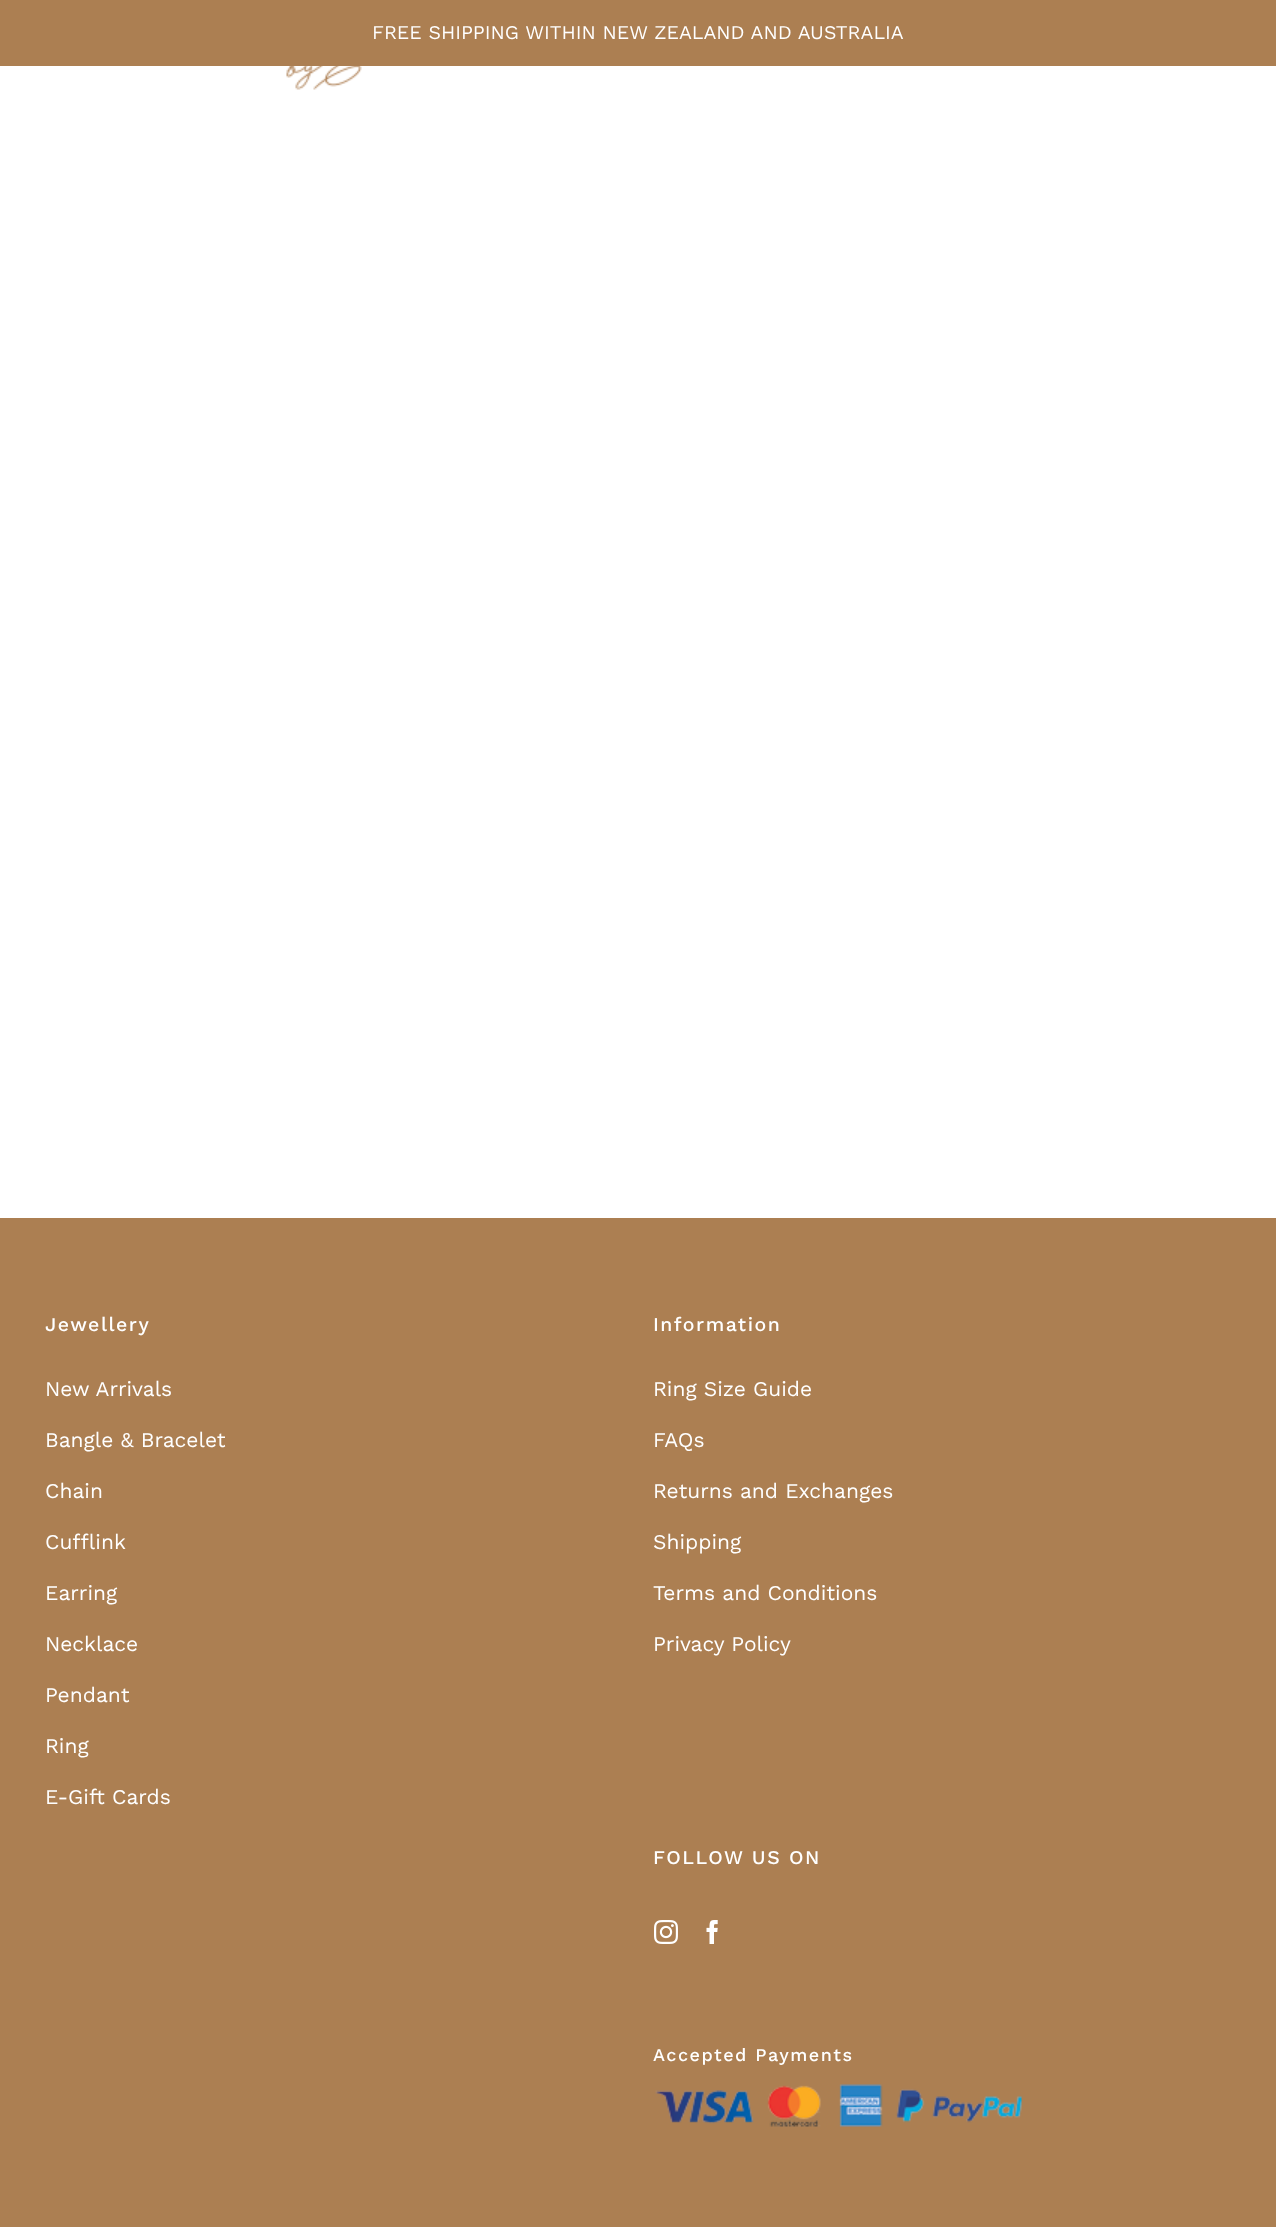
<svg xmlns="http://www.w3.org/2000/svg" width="1276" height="2227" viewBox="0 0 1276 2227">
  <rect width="100%" height="100%" fill="rgb(255,255,255)"/>
  <rect x="0" y="0" width="1276" height="66" fill="rgb(172,127,82)"/>
  <text x="372" y="39" font-family="Work Sans" font-size="19.5" fill="rgb(255,255,255)">FREE SHIPPING WITHIN NEW ZEALAND AND AUSTRALIA</text>
  <image x="286" y="66" width="76" height="24" href="pic1.png"/>
  <rect x="0" y="1218" width="1276" height="1009" fill="rgb(172,127,82)"/>
  <text x="45" y="1331" font-family="Work Sans" font-size="19.5" font-weight="500" letter-spacing="1.5" fill="rgb(255,255,255)">Jewellery</text>
  <g font-family="Work Sans" font-size="21" fill="rgb(255,255,255)">
    <text x="45" y="1396">New Arrivals</text>
    <text x="45" y="1447">Bangle &amp; Bracelet</text>
    <text x="45" y="1498">Chain</text>
    <text x="45" y="1549">Cufflink</text>
    <text x="45" y="1600">Earring</text>
    <text x="45" y="1651">Necklace</text>
    <text x="45" y="1702">Pendant</text>
    <text x="45" y="1753">Ring</text>
    <text x="45" y="1804">E-Gift Cards</text>
  </g>
  <text x="653" y="1331" font-family="Work Sans" font-size="19.5" font-weight="500" letter-spacing="1.5" fill="rgb(255,255,255)">Information</text>
  <g font-family="Work Sans" font-size="21" fill="rgb(255,255,255)">
    <text x="653" y="1396">Ring Size Guide</text>
    <text x="653" y="1447">FAQs</text>
    <text x="653" y="1498">Returns and Exchanges</text>
    <text x="653" y="1549">Shipping</text>
    <text x="653" y="1600">Terms and Conditions</text>
    <text x="653" y="1651">Privacy Policy</text>
  </g>
  <text x="653" y="1864" font-family="Work Sans" font-size="19.5" font-weight="500" letter-spacing="1.5" fill="rgb(255,255,255)">FOLLOW US ON</text>
  <image x="654" y="1920" width="24" height="24" href="pic2.png"/>
  <image x="706" y="1920" width="12" height="24" href="pic3.png"/>
  <text x="653" y="2061" font-family="Work Sans" font-size="18" font-weight="500" letter-spacing="1.5" fill="rgb(255,255,255)">Accepted Payments</text>
  <image x="655" y="2084" width="367" height="43" href="pic4.png"/>
</svg>
